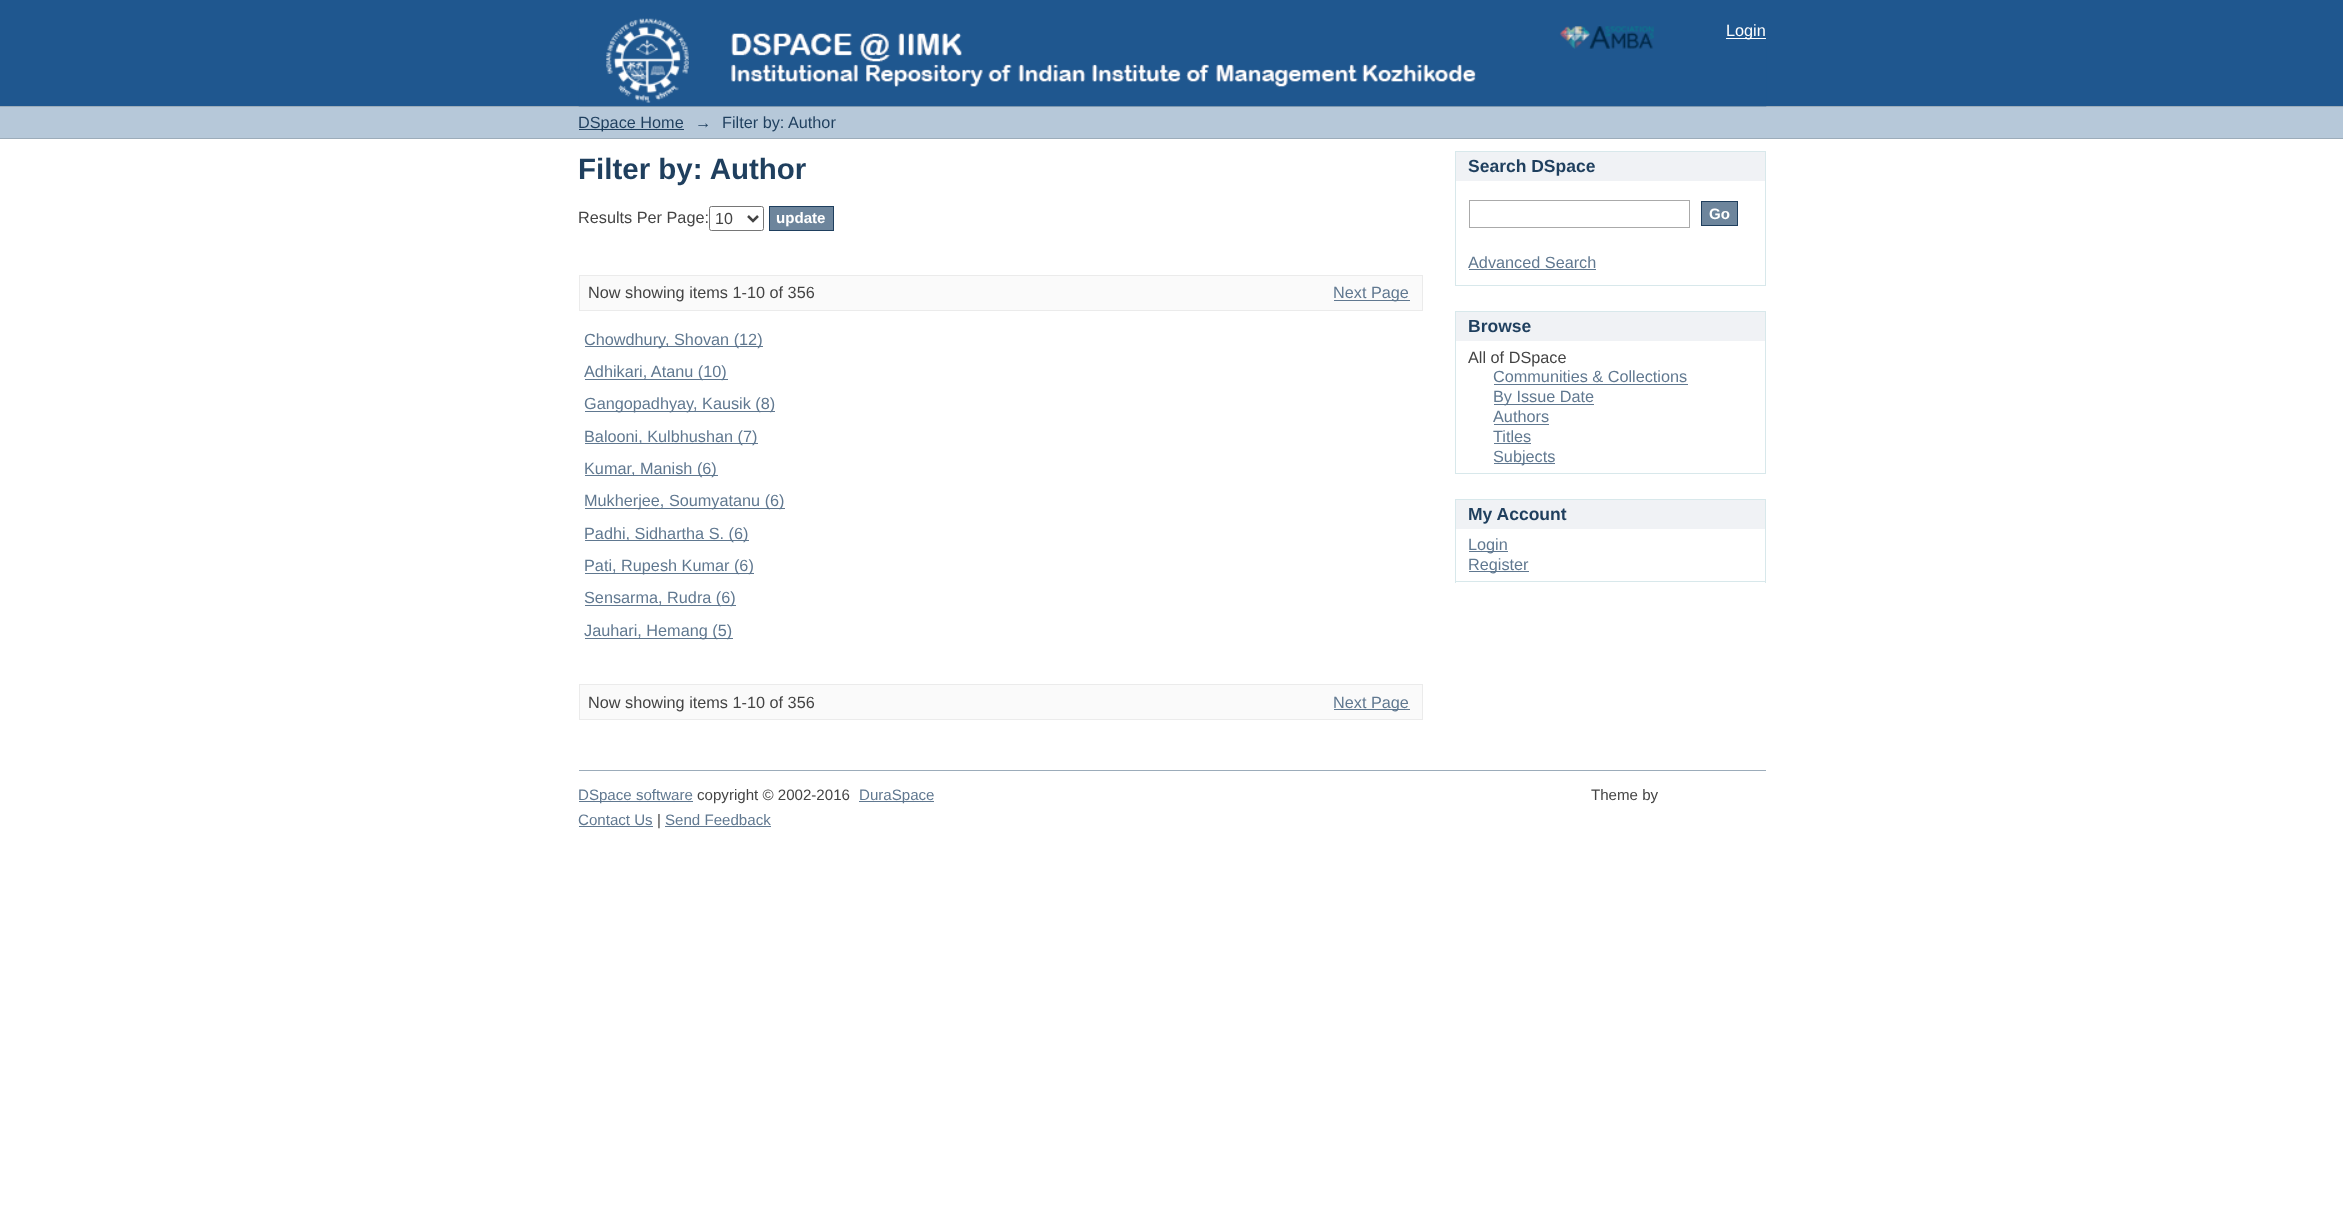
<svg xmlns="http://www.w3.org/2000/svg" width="2343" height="1225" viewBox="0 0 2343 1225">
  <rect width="100%" height="100%" fill="rgb(255,255,255)"/>
  <rect x="0" y="0" width="2343" height="106" fill="rgb(31,87,143)"/>
  <rect x="0" y="106" width="2343" height="1" fill="rgb(156,172,186)"/>
  <image x="578" y="18" width="1189" height="89" href="pic1.png"/>
  <rect x="1726" y="38" width="40" height="1" fill="rgb(255,255,255)"/>
  <text x="1726" y="36" font-family="Liberation Sans" font-size="16.25" fill="rgb(255,255,255)">Login</text>
  <rect x="0" y="107" width="2343" height="31" fill="rgb(182,200,217)"/>
  <rect x="0" y="138" width="2343" height="1" fill="rgb(156,172,186)"/>
  <rect x="579" y="129" width="105" height="1" fill="rgb(31,63,94)"/>
  <g font-family="Liberation Sans" font-size="16.25" fill="rgb(31,63,94)">
    <text x="578" y="128">DSpace Home</text>
    <text x="695" y="128">→</text>
    <text x="722" y="128">Filter by: Author</text>
  </g>
  <text x="578" y="179" font-family="Liberation Sans" font-size="29.5" font-weight="bold" fill="rgb(31,63,94)">Filter by: Author</text>
  <text x="578" y="223" font-family="Liberation Sans" font-size="16.25" fill="rgb(68,68,68)">Results Per Page:</text>
  <rect x="709.5" y="206.5" width="54" height="24" rx="2" fill="none" stroke="rgb(118,118,118)"/>
  <path d="M748 216L753 221L758 216" fill="none" stroke="rgb(68,68,68)" stroke-width="2.5"/>
  <text x="715" y="224" font-family="Liberation Sans" font-size="16" fill="rgb(68,68,68)">10</text>
  <rect x="769.5" y="206.5" width="64" height="24" fill="rgb(109,133,156)" stroke="rgb(31,63,94)"/>
  <text x="776" y="223" font-family="Liberation Sans" font-size="15.1" font-weight="bold" fill="rgb(255,255,255)">update</text>
  <rect x="579.5" y="275.5" width="843" height="35" fill="rgb(250,250,250)" stroke="rgb(235,235,235)"/>
  <text x="588" y="298" font-family="Liberation Sans" font-size="16.25" fill="rgb(68,68,68)">Now showing items 1-10 of 356</text>
  <rect x="1334" y="300" width="76" height="1" fill="rgb(96,120,144)"/>
  <text x="1333" y="298" font-family="Liberation Sans" font-size="16.25" fill="rgb(96,120,144)">Next Page</text>
  <rect x="585" y="346" width="178" height="1" fill="rgb(96,120,144)"/>
  <text x="584" y="345" font-family="Liberation Sans" font-size="16.25" fill="rgb(96,120,144)">Chowdhury, Shovan (12)</text>
  <rect x="585" y="379" width="143" height="1" fill="rgb(96,120,144)"/>
  <text x="584" y="377" font-family="Liberation Sans" font-size="16.25" fill="rgb(96,120,144)">Adhikari, Atanu (10)</text>
  <rect x="585" y="411" width="190" height="1" fill="rgb(96,120,144)"/>
  <text x="584" y="409" font-family="Liberation Sans" font-size="16.25" fill="rgb(96,120,144)">Gangopadhyay, Kausik (8)</text>
  <rect x="585" y="443" width="173" height="1" fill="rgb(96,120,144)"/>
  <text x="584" y="442" font-family="Liberation Sans" font-size="16.25" fill="rgb(96,120,144)">Balooni, Kulbhushan (7)</text>
  <rect x="585" y="475" width="133" height="1" fill="rgb(96,120,144)"/>
  <text x="584" y="474" font-family="Liberation Sans" font-size="16.25" fill="rgb(96,120,144)">Kumar, Manish (6)</text>
  <rect x="585" y="508" width="200" height="1" fill="rgb(96,120,144)"/>
  <text x="584" y="506" font-family="Liberation Sans" font-size="16.25" fill="rgb(96,120,144)">Mukherjee, Soumyatanu (6)</text>
  <rect x="585" y="540" width="164" height="1" fill="rgb(96,120,144)"/>
  <text x="584" y="539" font-family="Liberation Sans" font-size="16.25" fill="rgb(96,120,144)">Padhi, Sidhartha S. (6)</text>
  <rect x="585" y="573" width="169" height="1" fill="rgb(96,120,144)"/>
  <text x="584" y="571" font-family="Liberation Sans" font-size="16.25" fill="rgb(96,120,144)">Pati, Rupesh Kumar (6)</text>
  <rect x="585" y="605" width="151" height="1" fill="rgb(96,120,144)"/>
  <text x="584" y="603" font-family="Liberation Sans" font-size="16.25" fill="rgb(96,120,144)">Sensarma, Rudra (6)</text>
  <rect x="585" y="638" width="148" height="1" fill="rgb(96,120,144)"/>
  <text x="584" y="636" font-family="Liberation Sans" font-size="16.25" fill="rgb(96,120,144)">Jauhari, Hemang (5)</text>
  <rect x="579.5" y="684.5" width="843" height="35" fill="rgb(250,250,250)" stroke="rgb(235,235,235)"/>
  <text x="588" y="708" font-family="Liberation Sans" font-size="16.25" fill="rgb(68,68,68)">Now showing items 1-10 of 356</text>
  <rect x="1334" y="709" width="76" height="1" fill="rgb(96,120,144)"/>
  <text x="1333" y="708" font-family="Liberation Sans" font-size="16.25" fill="rgb(96,120,144)">Next Page</text>
  <rect x="1456" y="152" width="309" height="29" fill="rgb(240,242,245)"/>
  <rect x="1455" y="151" width="311" height="1" fill="rgb(216,232,235)"/>
  <rect x="1765" y="151" width="1" height="135" fill="rgb(216,232,235)"/>
  <rect x="1455" y="151" width="1" height="30" fill="rgb(216,232,235)"/>
  <text x="1468" y="172" font-family="Liberation Sans" font-size="17.5" font-weight="bold" fill="rgb(31,63,94)">Search DSpace</text>
  <rect x="1455" y="285" width="311" height="1" fill="rgb(216,232,235)"/>
  <rect x="1455" y="181" width="1" height="105" fill="rgb(216,232,235)"/>
  <rect x="1469.5" y="200.5" width="220" height="27" fill="none" stroke="rgb(170,170,170)"/>
  <rect x="1701.5" y="201.5" width="36" height="24" fill="rgb(109,133,156)" stroke="rgb(31,63,94)"/>
  <text x="1709" y="219" font-family="Liberation Sans" font-size="15.1" font-weight="bold" fill="rgb(255,255,255)">Go</text>
  <text x="1468" y="268" font-family="Liberation Sans" font-size="16.25" fill="rgb(96,120,144)">Advanced Search</text>
  <rect x="1469" y="269" width="127" height="1" fill="rgb(96,120,144)"/>
  <rect x="1456" y="312" width="309" height="29" fill="rgb(240,242,245)"/>
  <rect x="1455" y="311" width="311" height="1" fill="rgb(216,232,235)"/>
  <rect x="1765" y="311" width="1" height="163" fill="rgb(216,232,235)"/>
  <rect x="1455" y="311" width="1" height="30" fill="rgb(216,232,235)"/>
  <text x="1468" y="332" font-family="Liberation Sans" font-size="17.5" font-weight="bold" fill="rgb(31,63,94)">Browse</text>
  <rect x="1455" y="473" width="311" height="1" fill="rgb(216,232,235)"/>
  <rect x="1455" y="341" width="1" height="133" fill="rgb(216,232,235)"/>
  <text x="1468" y="363" font-family="Liberation Sans" font-size="16.25" fill="rgb(68,68,68)">All of DSpace</text>
  <text x="1493" y="382" font-family="Liberation Sans" font-size="16.25" fill="rgb(96,120,144)">Communities &amp; Collections</text>
  <rect x="1494" y="384" width="194" height="1" fill="rgb(96,120,144)"/>
  <rect x="1494" y="404" width="100" height="1" fill="rgb(96,120,144)"/>
  <g font-family="Liberation Sans" font-size="16.25" fill="rgb(96,120,144)">
    <text>
      <tspan x="1493" y="402">By Issue Date</tspan>
      <tspan x="1493" y="422">Authors</tspan>
    </text>
  </g>
  <rect x="1494" y="424" width="55" height="1" fill="rgb(96,120,144)"/>
  <text x="1493" y="442" font-family="Liberation Sans" font-size="16.25" fill="rgb(96,120,144)">Titles</text>
  <rect x="1494" y="443" width="37" height="1" fill="rgb(96,120,144)"/>
  <rect x="1494" y="463" width="61" height="1" fill="rgb(96,120,144)"/>
  <text x="1493" y="462" font-family="Liberation Sans" font-size="16.25" fill="rgb(96,120,144)">Subjects</text>
  <rect x="1456" y="500" width="309" height="29" fill="rgb(240,242,245)"/>
  <rect x="1455" y="499" width="311" height="1" fill="rgb(216,232,235)"/>
  <rect x="1765" y="499" width="1" height="84" fill="rgb(216,232,235)"/>
  <rect x="1455" y="499" width="1" height="30" fill="rgb(216,232,235)"/>
  <text x="1468" y="520" font-family="Liberation Sans" font-size="17.5" font-weight="bold" fill="rgb(31,63,94)">My Account</text>
  <rect x="1455" y="581" width="311" height="1" fill="rgb(216,232,235)"/>
  <rect x="1455" y="529" width="1" height="54" fill="rgb(216,232,235)"/>
  <rect x="1469" y="551" width="39" height="1" fill="rgb(96,120,144)"/>
  <text x="1468" y="550" font-family="Liberation Sans" font-size="16.25" fill="rgb(96,120,144)">Login</text>
  <rect x="1469" y="571" width="60" height="1" fill="rgb(96,120,144)"/>
  <text x="1468" y="570" font-family="Liberation Sans" font-size="16.25" fill="rgb(96,120,144)">Register</text>
  <rect x="579" y="770" width="1187" height="1" fill="rgb(156,172,186)"/>
  <rect x="579" y="801" width="114" height="1" fill="rgb(96,120,144)"/>
  <text x="578" y="800" font-family="Liberation Sans" font-size="15.1" fill="rgb(96,120,144)">DSpace software</text>
  <text x="697" y="800" font-family="Liberation Sans" font-size="15.1" fill="rgb(68,68,68)">copyright © 2002-2016</text>
  <rect x="859" y="801" width="75" height="1" fill="rgb(96,120,144)"/>
  <text x="859" y="800" font-family="Liberation Sans" font-size="15.1" fill="rgb(96,120,144)">DuraSpace</text>
  <text x="1591" y="800" font-family="Liberation Sans" font-size="15.1" fill="rgb(68,68,68)">Theme by</text>
  <text x="578" y="825" font-family="Liberation Sans" font-size="15.1" fill="rgb(96,120,144)">Contact Us</text>
  <rect x="579" y="826" width="74" height="1" fill="rgb(96,120,144)"/>
  <text x="657" y="825" font-family="Liberation Sans" font-size="15.1" fill="rgb(68,68,68)">|</text>
  <text x="665" y="825" font-family="Liberation Sans" font-size="15.1" fill="rgb(96,120,144)">Send Feedback</text>
  <rect x="665" y="826" width="106" height="1" fill="rgb(96,120,144)"/>
</svg>
